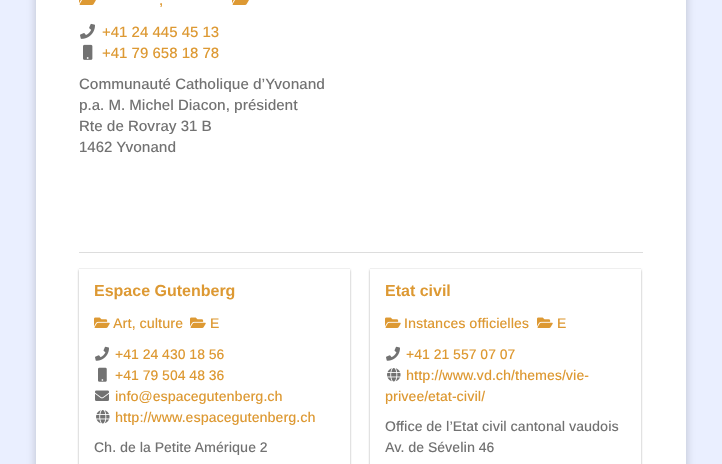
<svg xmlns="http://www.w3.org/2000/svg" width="722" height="464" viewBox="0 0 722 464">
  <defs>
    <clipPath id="clip1"><path d="M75 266H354V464H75ZM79 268H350V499H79Z" clip-rule="evenodd"/></clipPath>
    <clipPath id="clip2"><path d="M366 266H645V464H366ZM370 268H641V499H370Z" clip-rule="evenodd"/></clipPath>
  </defs>
  <rect width="100%" height="100%" fill="rgb(234,239,255)"/>
  <rect x="36" y="-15" width="650" height="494" fill="rgba(0,0,0,0.2)" filter="blur(5px)"/>
  <rect x="36" y="0" width="650" height="464" fill="rgb(255,255,255)"/>
  <image x="232" y="0" width="17" height="5" href="pic1.png"/>
  <image x="79" y="0" width="17" height="5" href="pic1.png"/>
  <text x="159" y="5" font-family="Arimo" font-size="15" font-weight="500" fill="rgb(221,153,51)">,</text>
  <image x="80" y="23" width="15" height="16" href="pic2.png"/>
  <text x="102" y="37" font-family="Arimo" font-size="15" font-weight="500" fill="rgb(221,153,51)">+41 24 445 45 13</text>
  <image x="83" y="44" width="10" height="16" href="pic3.png"/>
  <text x="102" y="58" font-family="Arimo" font-size="15" font-weight="500" fill="rgb(221,153,51)">+41 79 658 18 78</text>
  <g font-family="Arimo" font-size="15" font-weight="500" fill="rgb(114,114,114)">
    <text>
      <tspan x="79" y="89">Communauté Catholique d’Yvonand</tspan>
      <tspan x="79" y="110">p.a. M. Michel Diacon, président</tspan>
      <tspan x="79" y="131">Rte de Rovray 31 B</tspan>
      <tspan x="79" y="152">1462 Yvonand</tspan>
    </text>
  </g>
  <rect x="79" y="252" width="564" height="1" fill="rgb(221,221,221)"/>
  <g clip-path="url(#clip1)">
    <rect x="79" y="270" width="271" height="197" fill="rgba(85,85,85,0.5)" filter="blur(1px)"/>
  </g>
  <rect x="79" y="268" width="271" height="1" fill="rgb(239,239,239)"/>
  <text x="94" y="296" font-family="Arimo" font-size="16" font-weight="bold" fill="rgb(221,153,51)">Espace Gutenberg</text>
  <image x="94" y="317" width="16" height="11" href="pic4.png"/>
  <text x="113" y="328" font-family="Arimo" font-size="14" font-weight="500" fill="rgb(221,153,51)">Art, culture</text>
  <image x="190" y="317" width="16" height="11" href="pic4.png"/>
  <text x="210" y="328" font-family="Arimo" font-size="14" font-weight="500" fill="rgb(221,153,51)">E</text>
  <image x="95" y="346" width="14" height="15" href="pic5.png"/>
  <text x="115" y="359" font-family="Arimo" font-size="14" font-weight="500" fill="rgb(221,153,51)">+41 24 430 18 56</text>
  <image x="98" y="367" width="9" height="15" href="pic6.png"/>
  <text x="115" y="380" font-family="Arimo" font-size="14" font-weight="500" fill="rgb(221,153,51)">+41 79 504 48 36</text>
  <image x="95" y="390" width="14" height="11" href="pic7.png"/>
  <text x="115" y="401" font-family="Arimo" font-size="14" font-weight="500" fill="rgb(221,153,51)">info@espacegutenberg.ch</text>
  <image x="96" y="410" width="14" height="14" href="pic8.png"/>
  <text x="115" y="422" font-family="Arimo" font-size="14" font-weight="500" fill="rgb(221,153,51)">http://www.espacegutenberg.ch</text>
  <text x="94" y="452" font-family="Arimo" font-size="14" font-weight="500" fill="rgb(114,114,114)">Ch. de la Petite Amérique 2</text>
  <g clip-path="url(#clip2)">
    <rect x="370" y="270" width="271" height="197" fill="rgba(85,85,85,0.5)" filter="blur(1px)"/>
  </g>
  <rect x="370" y="268" width="271" height="1" fill="rgb(239,239,239)"/>
  <text x="385" y="296" font-family="Arimo" font-size="16" font-weight="bold" fill="rgb(221,153,51)">Etat civil</text>
  <image x="385" y="317" width="16" height="11" href="pic4.png"/>
  <text x="404" y="328" font-family="Arimo" font-size="14" font-weight="500" fill="rgb(221,153,51)">Instances officielles</text>
  <image x="537" y="317" width="16" height="11" href="pic4.png"/>
  <text x="557" y="328" font-family="Arimo" font-size="14" font-weight="500" fill="rgb(221,153,51)">E</text>
  <image x="386" y="346" width="14" height="15" href="pic5.png"/>
  <text x="406" y="359" font-family="Arimo" font-size="14" font-weight="500" fill="rgb(221,153,51)">+41 21 557 07 07</text>
  <image x="387" y="368" width="14" height="14" href="pic8.png"/>
  <g font-family="Arimo" font-size="14" font-weight="500" fill="rgb(221,153,51)">
    <text x="406" y="380">http://www.vd.ch/themes/vie-</text>
    <text x="385" y="401">privee/etat-civil/</text>
  </g>
  <g font-family="Arimo" font-size="14" font-weight="500" fill="rgb(114,114,114)">
    <text>
      <tspan x="385" y="431">Office de l’Etat civil cantonal vaudois</tspan>
      <tspan x="385" y="452">Av. de Sévelin 46</tspan>
    </text>
  </g>
</svg>
